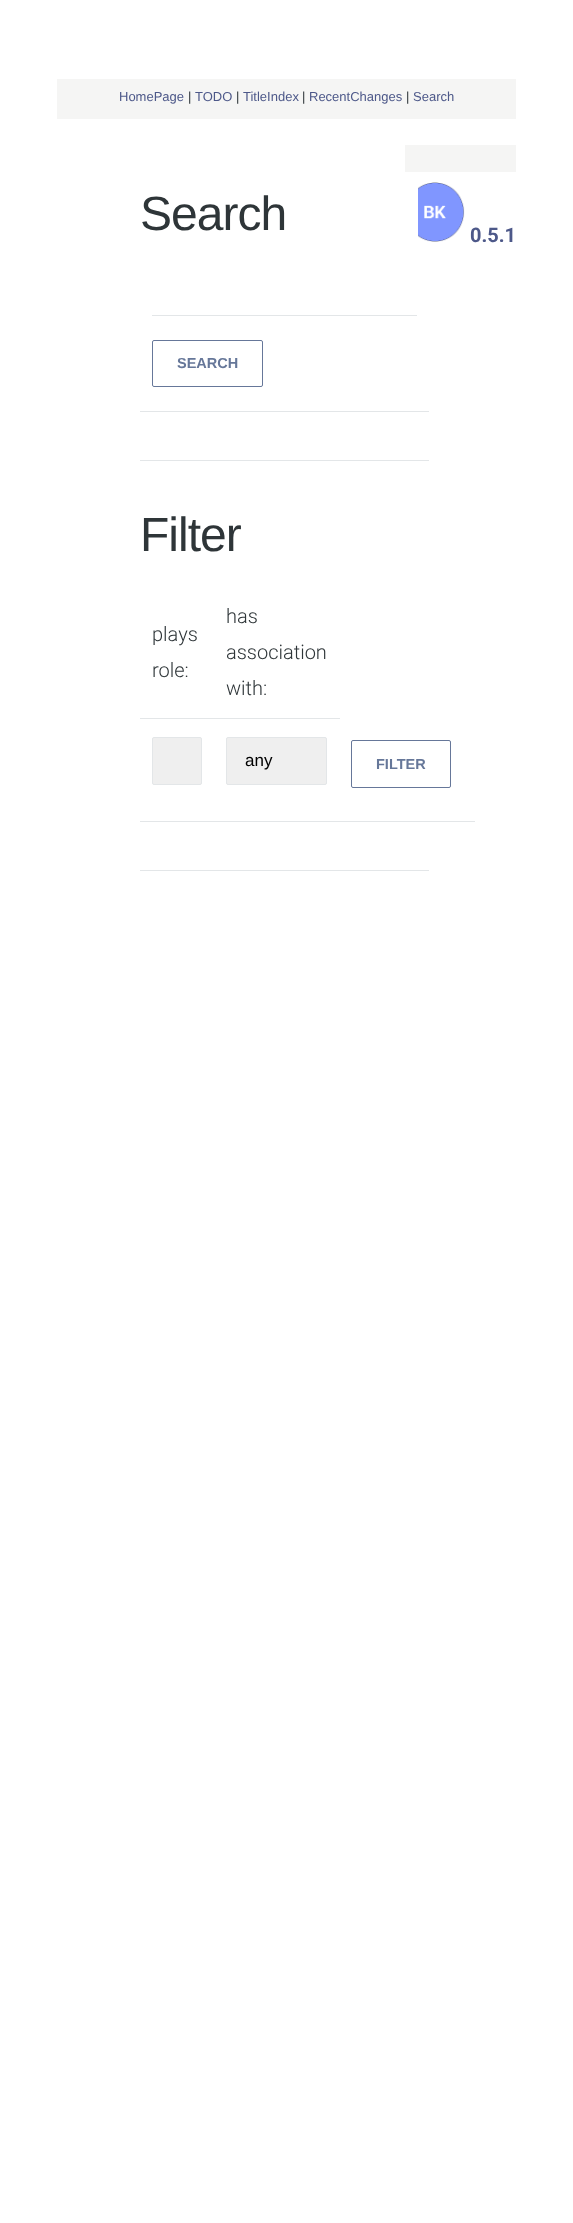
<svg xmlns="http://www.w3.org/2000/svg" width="573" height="2223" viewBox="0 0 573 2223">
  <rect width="100%" height="100%" fill="rgb(255,255,255)"/>
  <rect x="57" y="79" width="459" height="40" fill="rgb(245,245,244)"/>
  <text x="119" y="101" font-family="Liberation Sans" font-size="13" fill="rgb(77,88,137)">HomePage</text>
  <text x="188" y="101" font-family="Liberation Sans" font-size="13" fill="rgb(46,53,56)">|</text>
  <text x="195" y="101" font-family="Liberation Sans" font-size="13" fill="rgb(77,88,137)">TODO</text>
  <text x="236" y="101" font-family="Liberation Sans" font-size="13" fill="rgb(46,53,56)">|</text>
  <text x="243" y="101" font-family="Liberation Sans" font-size="13" fill="rgb(77,88,137)">TitleIndex</text>
  <text x="302" y="101" font-family="Liberation Sans" font-size="13" fill="rgb(46,53,56)">|</text>
  <text x="309" y="101" font-family="Liberation Sans" font-size="13" fill="rgb(77,88,137)">RecentChanges</text>
  <text x="406" y="101" font-family="Liberation Sans" font-size="13" fill="rgb(46,53,56)">|</text>
  <text x="413" y="101" font-family="Liberation Sans" font-size="13" fill="rgb(77,88,137)">Search</text>
  <text x="140" y="230" font-family="Liberation Sans" font-size="48" letter-spacing="-1" fill="rgb(46,53,56)">Search</text>
  <rect x="140" y="411" width="289" height="1" fill="rgb(227,230,232)"/>
  <rect x="152" y="315" width="265" height="1" fill="rgb(227,230,232)"/>
  <rect x="152.5" y="340.5" width="110" height="46" rx="1.5" fill="none" stroke="rgb(102,119,153)"/>
  <text x="177" y="368" font-family="Liberation Sans" font-size="14.5" font-weight="bold" fill="rgb(102,119,153)">SEARCH</text>
  <rect x="140" y="460" width="289" height="1" fill="rgb(227,230,232)"/>
  <text x="140" y="551" font-family="Liberation Sans" font-size="48" letter-spacing="-1" fill="rgb(46,53,56)">Filter</text>
  <g font-family="Roboto" font-size="20" font-weight="300" fill="rgb(46,53,56)">
    <text>
      <tspan x="152" y="641">plays</tspan>
      <tspan x="152" y="677">role:</tspan>
    </text>
  </g>
  <rect x="140" y="718" width="200" height="1" fill="rgb(227,230,232)"/>
  <g font-family="Roboto" font-size="20" font-weight="300" fill="rgb(46,53,56)">
    <text>
      <tspan x="226" y="623">has</tspan>
      <tspan x="226" y="659">association</tspan>
      <tspan x="226" y="695">with:</tspan>
    </text>
  </g>
  <rect x="152.5" y="737.5" width="49" height="47" rx="1.5" fill="rgb(239,239,239)" stroke="rgb(227,230,232)"/>
  <rect x="226.5" y="737.5" width="100" height="47" rx="1.5" fill="rgb(239,239,239)" stroke="rgb(227,230,232)"/>
  <text x="245" y="766" font-family="Liberation Sans" font-size="17" fill="rgb(0,0,0)">any</text>
  <rect x="140" y="821" width="335" height="1" fill="rgb(227,230,232)"/>
  <rect x="351.5" y="740.5" width="99" height="47" rx="1.5" fill="none" stroke="rgb(102,119,153)"/>
  <text x="376" y="769" font-family="Liberation Sans" font-size="14.5" font-weight="bold" fill="rgb(102,119,153)">FILTER</text>
  <rect x="140" y="870" width="289" height="1" fill="rgb(227,230,232)"/>
  <rect x="405" y="145" width="111" height="27" fill="rgb(245,245,244)"/>
  <image x="418" y="182" width="47" height="60" href="pic1.png"/>
  <text x="470" y="242" font-family="Roboto" font-size="20" font-weight="bold" fill="rgb(77,88,137)">0.5.1</text>
</svg>
